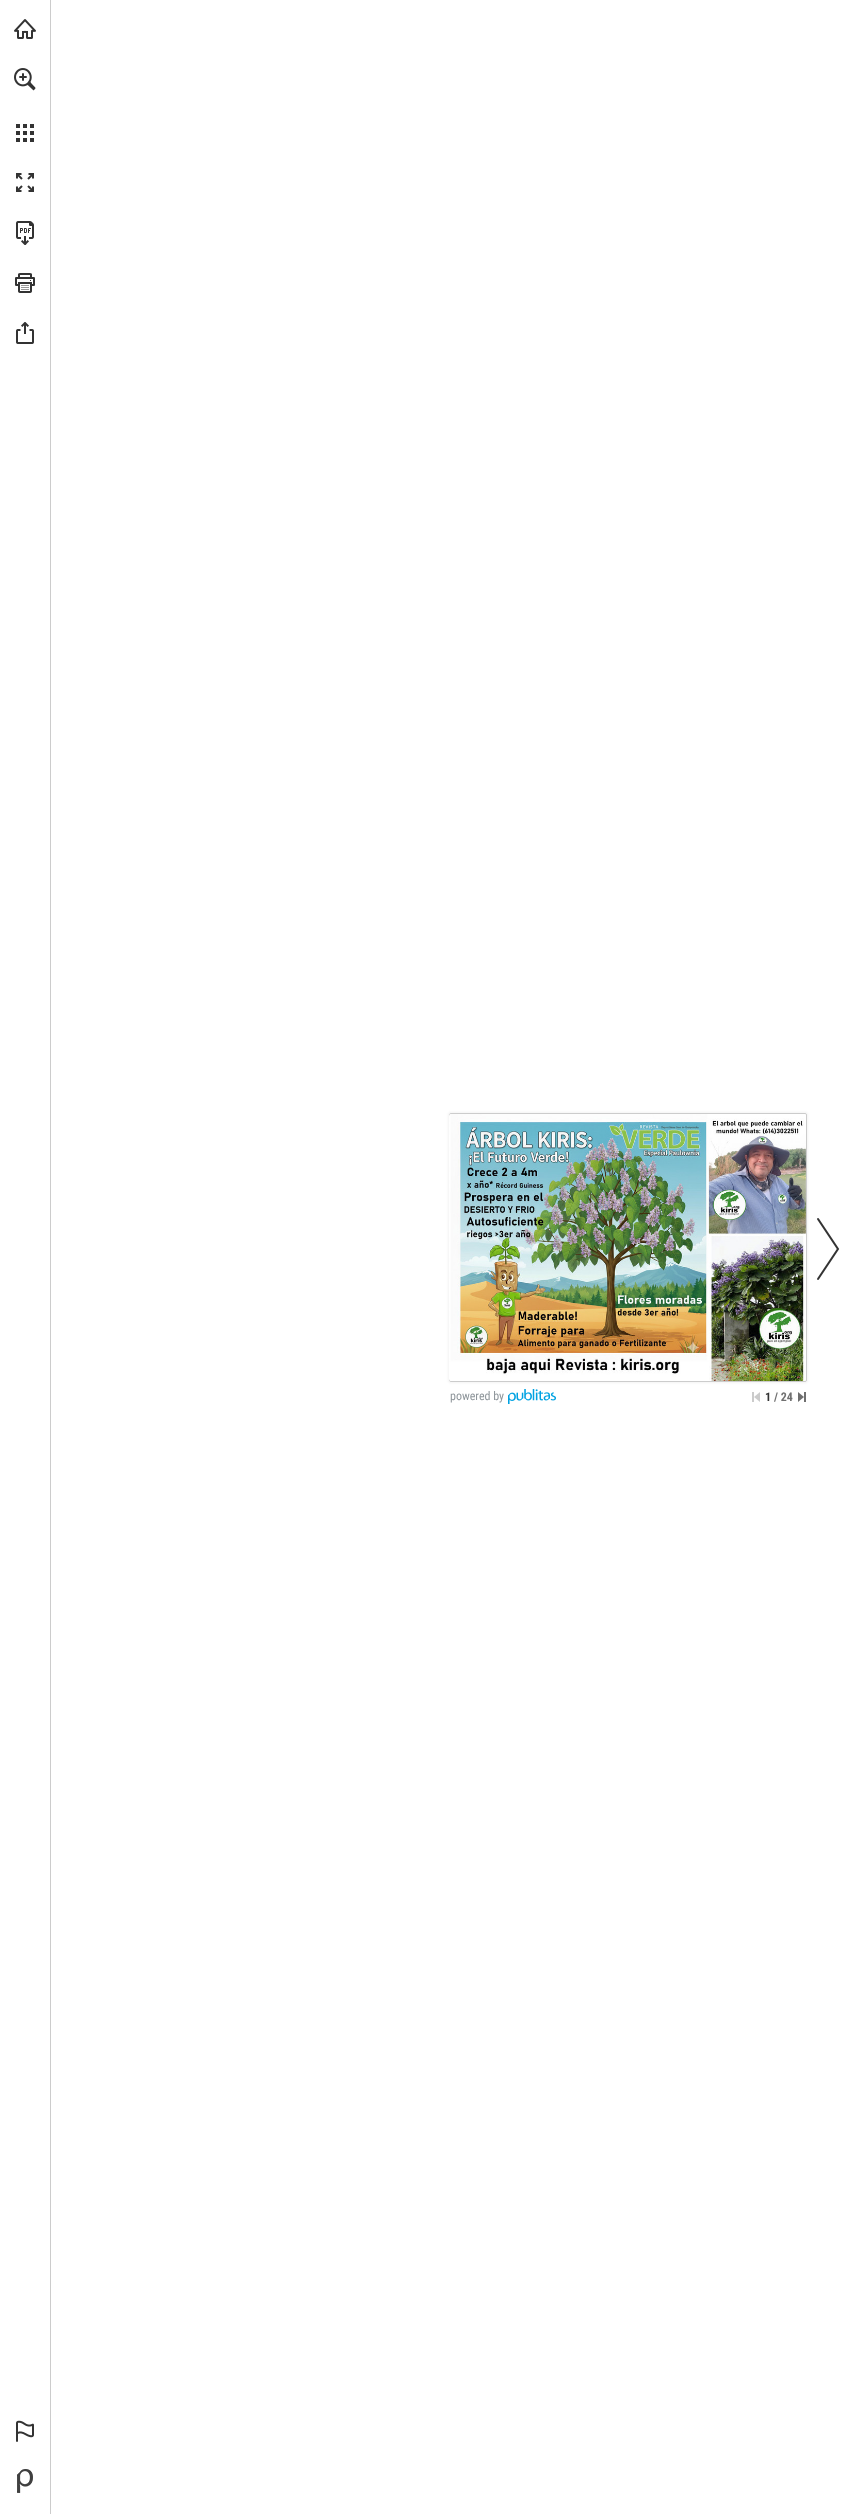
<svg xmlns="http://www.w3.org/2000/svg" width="847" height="2514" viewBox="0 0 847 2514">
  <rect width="100%" height="100%" fill="rgb(255,255,255)"/>
  <rect x="1" y="0" width="50" height="2514" fill="rgba(0,0,0,0.2)" filter="blur(0.5px)"/>
  <rect x="0" y="0" width="50" height="2514" fill="rgb(255,255,255)"/>
  <image x="14" y="19" width="22" height="20" href="pic1.png"/>
  <image x="14" y="68" width="22" height="23" href="pic2.png"/>
  <image x="16" y="124" width="18" height="18" href="pic3.png"/>
  <image x="16" y="173" width="18" height="19" href="pic4.png"/>
  <image x="16" y="221" width="18" height="24" href="pic5.png"/>
  <image x="15" y="273" width="20" height="20" href="pic6.png"/>
  <image x="16" y="322" width="18" height="22" href="pic7.png"/>
  <image x="16" y="2420" width="18" height="22" href="pic8.png"/>
  <image x="17" y="2469" width="16" height="24" href="pic9.png"/>
  <rect x="448" y="1112" width="360" height="271" rx="3" fill="rgba(18,18,18,0.05)" filter="blur(1px)"/>
  <rect x="449.5" y="1113.5" width="357" height="268" rx="1.5" fill="rgb(255,255,255)" stroke="rgb(204,204,204)"/>
  <image x="449" y="1114" width="357" height="267" href="pic10.png"/>
  <image x="508" y="1389" width="48" height="15" href="pic11.png"/>
  <text x="450" y="1400" font-family="Roboto Condensed" font-size="12" fill="rgb(143,150,155)">powered by</text>
  <image x="817" y="1218" width="23" height="62" href="pic12.png"/>
  <image x="752" y="1392" width="8" height="10" href="pic13.png"/>
  <text x="765" y="1401" font-family="Roboto Condensed" font-size="12" font-weight="bold" fill="rgb(51,51,51)">1</text>
  <text x="774" y="1401" font-family="Roboto Condensed" font-size="12" font-weight="bold" fill="rgb(112,112,112)">/ 24</text>
  <image x="798" y="1392" width="8" height="10" href="pic14.png"/>
</svg>
